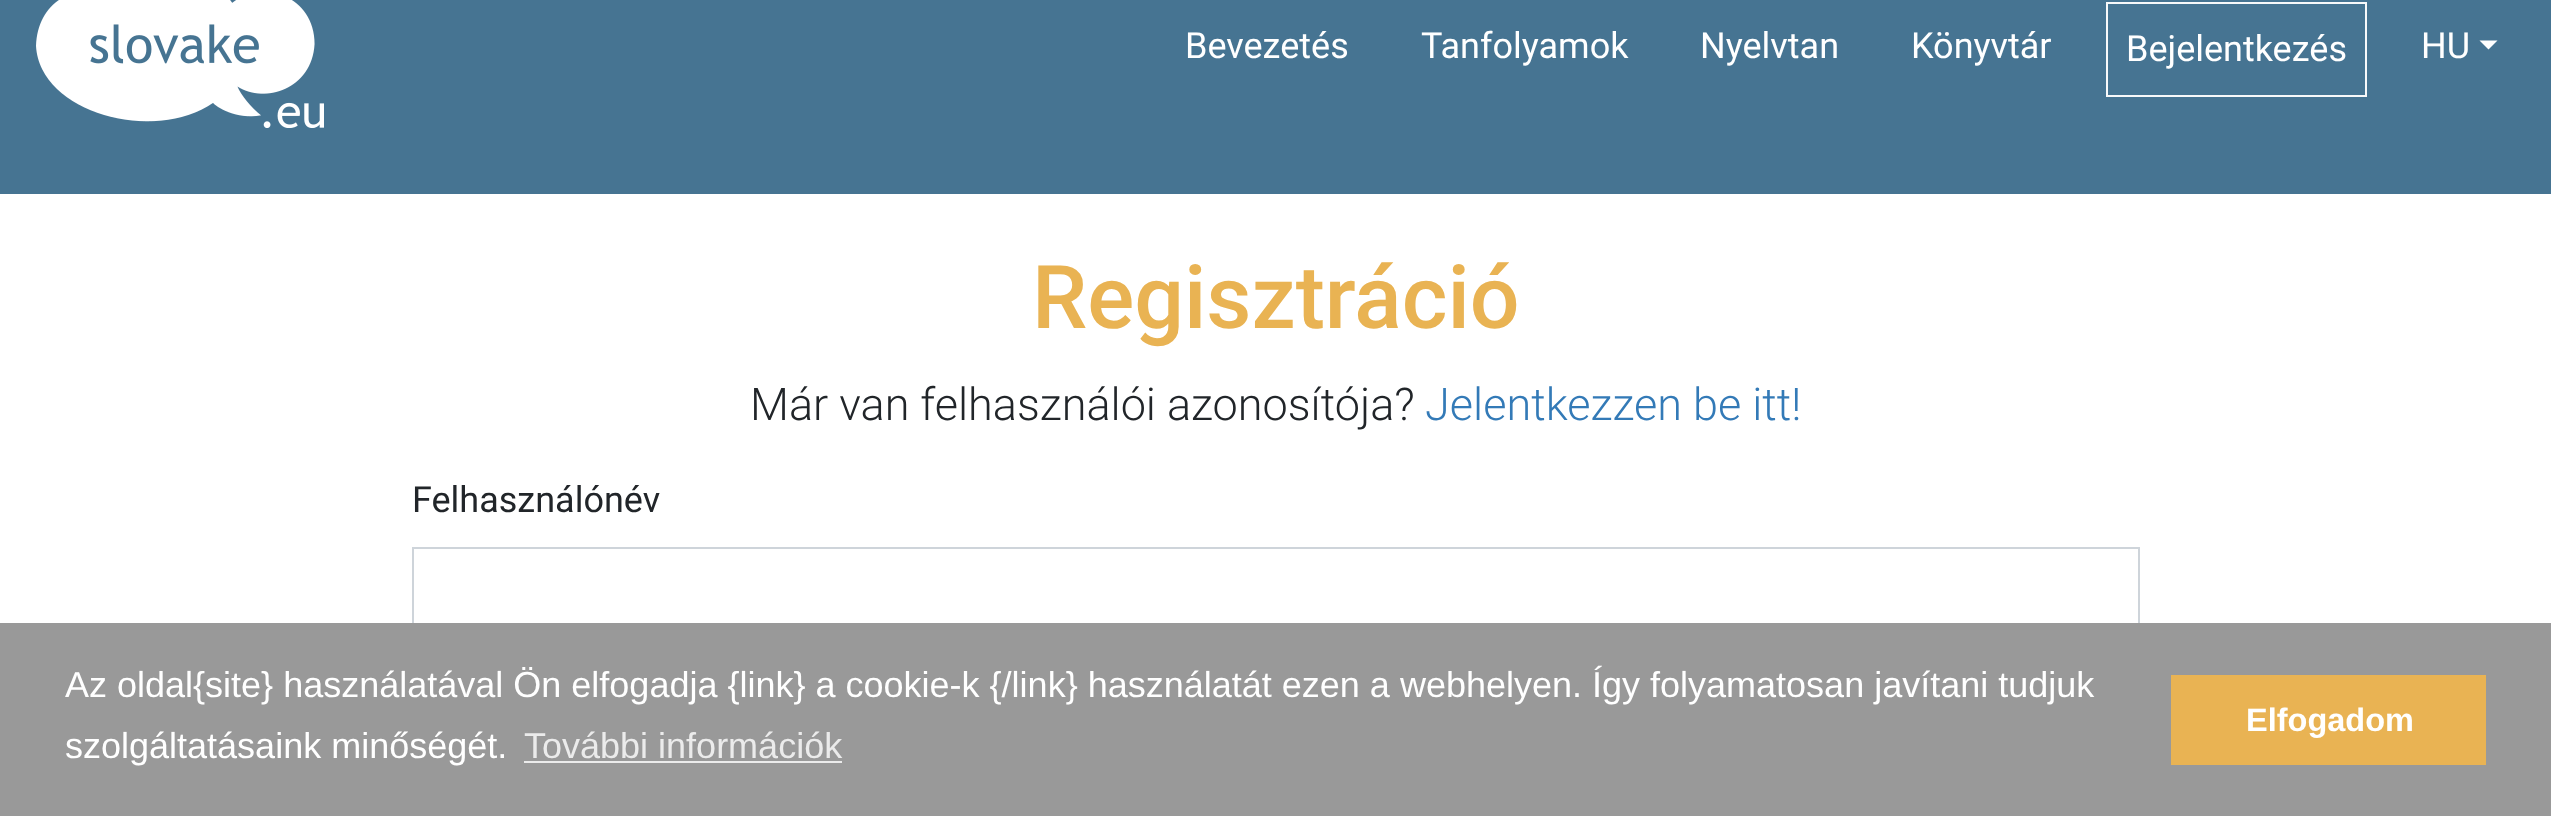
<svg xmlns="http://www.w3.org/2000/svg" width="2551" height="816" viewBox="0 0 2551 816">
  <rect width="100%" height="100%" fill="rgb(255,255,255)"/>
  <rect x="0" y="0" width="2551" height="194" fill="rgb(70,116,146)"/>
  <image x="36" y="0" width="288" height="128" href="pic1.png"/>
  <g font-family="Roboto" font-size="36" fill="rgb(255,255,255)">
    <text x="1185" y="58">Bevezetés</text>
    <text x="1421" y="58">Tanfolyamok</text>
    <text x="1700" y="58">Nyelvtan</text>
    <text x="1911" y="58">Könyvtár</text>
  </g>
  <rect x="2107" y="3" width="259" height="93" fill="none" stroke="rgb(248,249,250)" stroke-width="2"/>
  <g font-family="Roboto" font-size="36" fill="rgb(255,255,255)">
    <text x="2126" y="61">Bejelentkezés</text>
    <text x="2421" y="58">HU</text>
  </g>
  <path d="M2479.5 40.5H2497.5L2488.5 49.5Z" fill="rgb(255,255,255)"/>
  <text x="1032" y="328" font-family="Roboto" font-size="87.75" font-weight="500" fill="rgb(233,179,83)">Regisztráció</text>
  <text x="750" y="420" font-family="Roboto" font-size="45" font-weight="300" fill="rgb(33,37,41)">Már van felhasználói azonosítója?</text>
  <text x="1425" y="420" font-family="Roboto" font-size="45" font-weight="300" fill="rgb(51,122,183)">Jelentkezzen be itt!</text>
  <text x="412" y="512" font-family="Roboto" font-size="36" fill="rgb(33,37,41)">Felhasználónév</text>
  <rect x="413" y="548" width="1726" height="83" fill="none" stroke="rgb(206,212,218)" stroke-width="2"/>
  <rect x="0" y="623" width="2551" height="193" fill="rgb(153,153,153)"/>
  <g font-family="Liberation Sans" font-size="36" fill="rgb(255,255,255)">
    <text>
      <tspan x="65" y="697">Az oldal{site} használatával Ön elfogadja {link} a cookie-k {/link} használatát ezen a webhelyen. Így folyamatosan javítani tudjuk</tspan>
      <tspan x="65" y="758">szolgáltatásaink minőségét.</tspan>
    </text>
  </g>
  <text x="524" y="758" font-family="Liberation Sans" font-size="36" fill="rgb(235,235,235)">További információk</text>
  <rect x="524" y="761" width="318" height="2" fill="rgb(235,235,235)"/>
  <rect x="2171" y="675" width="315" height="90" fill="rgb(233,179,83)"/>
  <text x="2246" y="731" font-family="Liberation Sans" font-size="32.5" font-weight="bold" fill="rgb(255,255,255)">Elfogadom</text>
</svg>
